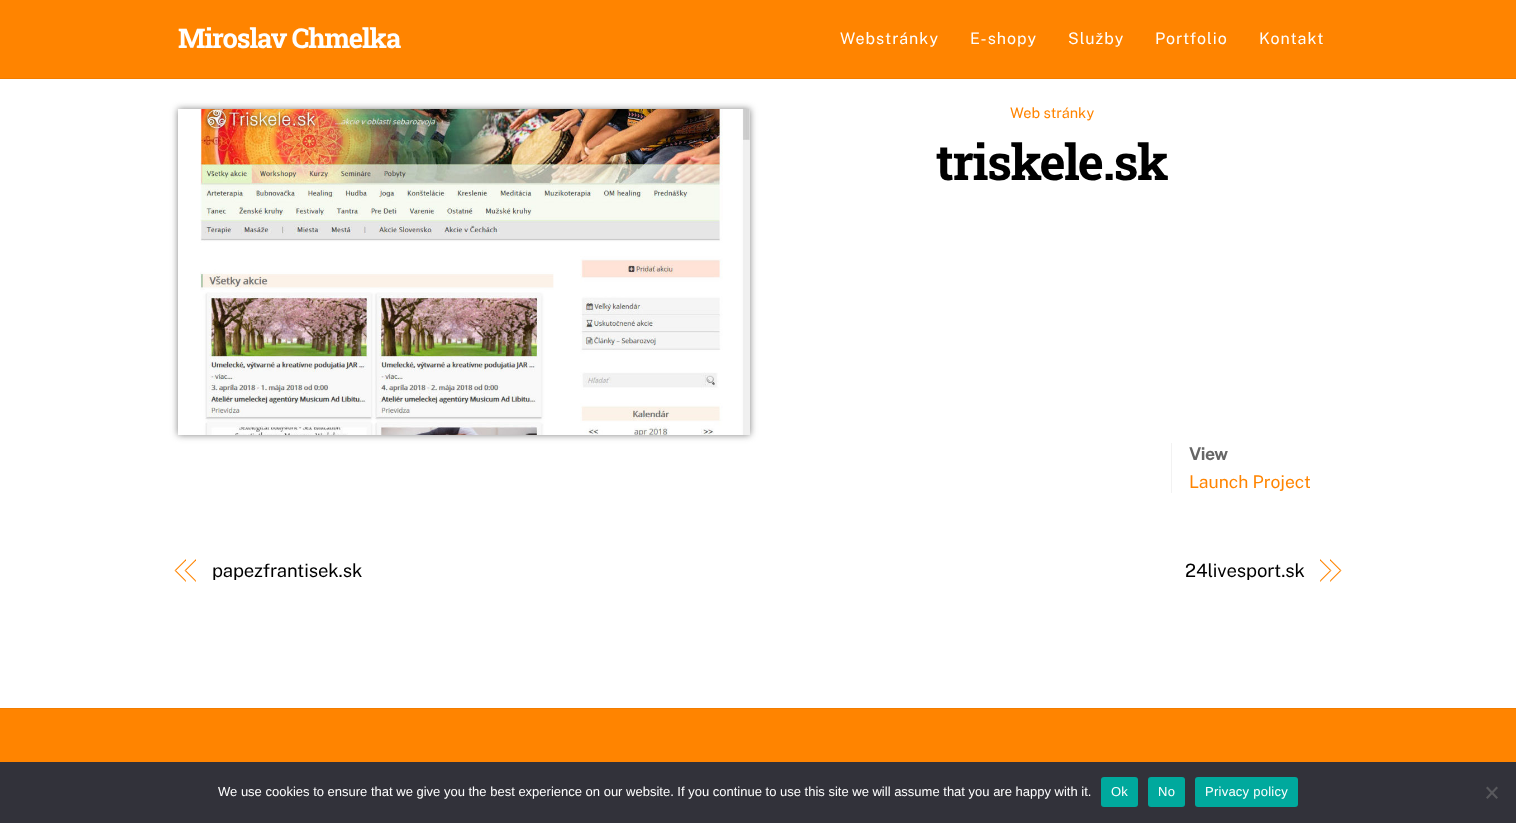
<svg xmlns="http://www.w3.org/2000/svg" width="1516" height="823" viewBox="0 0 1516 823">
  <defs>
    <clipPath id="clip1"><path d="M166 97H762V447H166ZM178 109H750V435H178Z" clip-rule="evenodd"/></clipPath>
  </defs>
  <rect width="100%" height="100%" fill="rgb(255,255,255)"/>
  <rect x="0" y="0" width="1516" height="78" fill="rgb(255,132,0)"/>
  <rect x="0" y="78" width="1516" height="1" fill="rgb(242,125,0)"/>
  <text x="178" y="48" font-family="Roboto Slab" font-size="27.25" font-weight="bold" letter-spacing="-1.1" fill="rgb(255,255,255)">Miroslav Chmelka</text>
  <g font-family="Public Sans" font-size="16" letter-spacing="1" fill="rgb(255,255,255)">
    <text x="840" y="44">Webstránky</text>
    <text x="970" y="44">E-shopy</text>
    <text x="1068" y="44">Služby</text>
    <text x="1155" y="44">Portfolio</text>
    <text x="1259" y="44">Kontakt</text>
  </g>
  <g clip-path="url(#clip1)">
    <rect x="178" y="109" width="572" height="326" fill="rgb(128,128,128)" filter="blur(3.5px)"/>
  </g>
  <image x="200" y="109" width="550" height="326" href="pic1.png"/>
  <text x="1010" y="118" font-family="Public Sans" font-size="14.5" fill="rgb(255,132,0)">Web stránky</text>
  <text x="936" y="180" font-family="Roboto Slab" font-size="49.5" font-weight="bold" letter-spacing="-1.5" fill="rgb(0,0,0)">triskele.sk</text>
  <rect x="1171" y="443" width="1" height="50" fill="rgb(242,242,242)"/>
  <text x="1189" y="460" font-family="Public Sans" font-size="17.5" font-weight="bold" letter-spacing="-0.5" fill="rgb(102,102,102)">View</text>
  <text x="1189" y="488" font-family="Public Sans" font-size="17.5" fill="rgb(255,132,0)">Launch Project</text>
  <path d="M174.5 570.5L186 559V560.5L176 570.5Z" fill="rgb(255,132,0)"/>
  <path d="M186 582L174.5 570.5H176L186 580.5Z" fill="rgb(255,132,0)"/>
  <path d="M184.5 570.5L196 559V560.5L186 570.5Z" fill="rgb(255,132,0)"/>
  <path d="M196 582L184.5 570.5H186L196 580.5Z" fill="rgb(255,132,0)"/>
  <g font-family="Public Sans" font-size="18.5" letter-spacing="-0.1" fill="rgb(0,0,0)">
    <text x="212" y="577">papezfrantisek.sk</text>
    <text x="1185" y="577">24livesport.sk</text>
  </g>
  <path d="M1330 559L1341.5 570.5H1340L1330 560.5Z" fill="rgb(255,132,0)"/>
  <path d="M1341.5 570.5L1330 582V580.5L1340 570.5Z" fill="rgb(255,132,0)"/>
  <path d="M1320 559L1331.5 570.5H1330L1320 560.5Z" fill="rgb(255,132,0)"/>
  <path d="M1331.5 570.5L1320 582V580.5L1330 570.5Z" fill="rgb(255,132,0)"/>
  <rect x="0" y="709" width="1516" height="53" fill="rgb(255,132,0)"/>
  <rect x="0" y="708" width="1516" height="1" fill="rgb(242,125,0)"/>
  <rect x="0" y="762" width="1516" height="61" fill="rgb(50,50,58)"/>
  <text x="218" y="796" font-family="Liberation Sans" font-size="13" fill="rgb(255,255,255)">We use cookies to ensure that we give you the best experience on our website. If you continue to use this site we will assume that you are happy with it.</text>
  <rect x="1101" y="777" width="37" height="30" rx="3" fill="rgb(0,169,157)"/>
  <text x="1111" y="796" font-family="Liberation Sans" font-size="13" letter-spacing="0.25" fill="rgb(255,255,255)">Ok</text>
  <rect x="1148" y="777" width="37" height="30" rx="3" fill="rgb(0,169,157)"/>
  <text x="1158" y="796" font-family="Liberation Sans" font-size="13" letter-spacing="0.25" fill="rgb(255,255,255)">No</text>
  <rect x="1195" y="777" width="103" height="30" rx="3" fill="rgb(0,169,157)"/>
  <text x="1205" y="796" font-family="Liberation Sans" font-size="13" letter-spacing="0.25" fill="rgb(255,255,255)">Privacy policy</text>
  <path d="M1496.5 786.5L1498 788L1487.5 799L1486 797.5Z" fill="rgb(89,89,93)"/>
  <path d="M1486 788L1487.5 786.5L1498 797.5L1496.5 799Z" fill="rgb(89,89,93)"/>
</svg>
